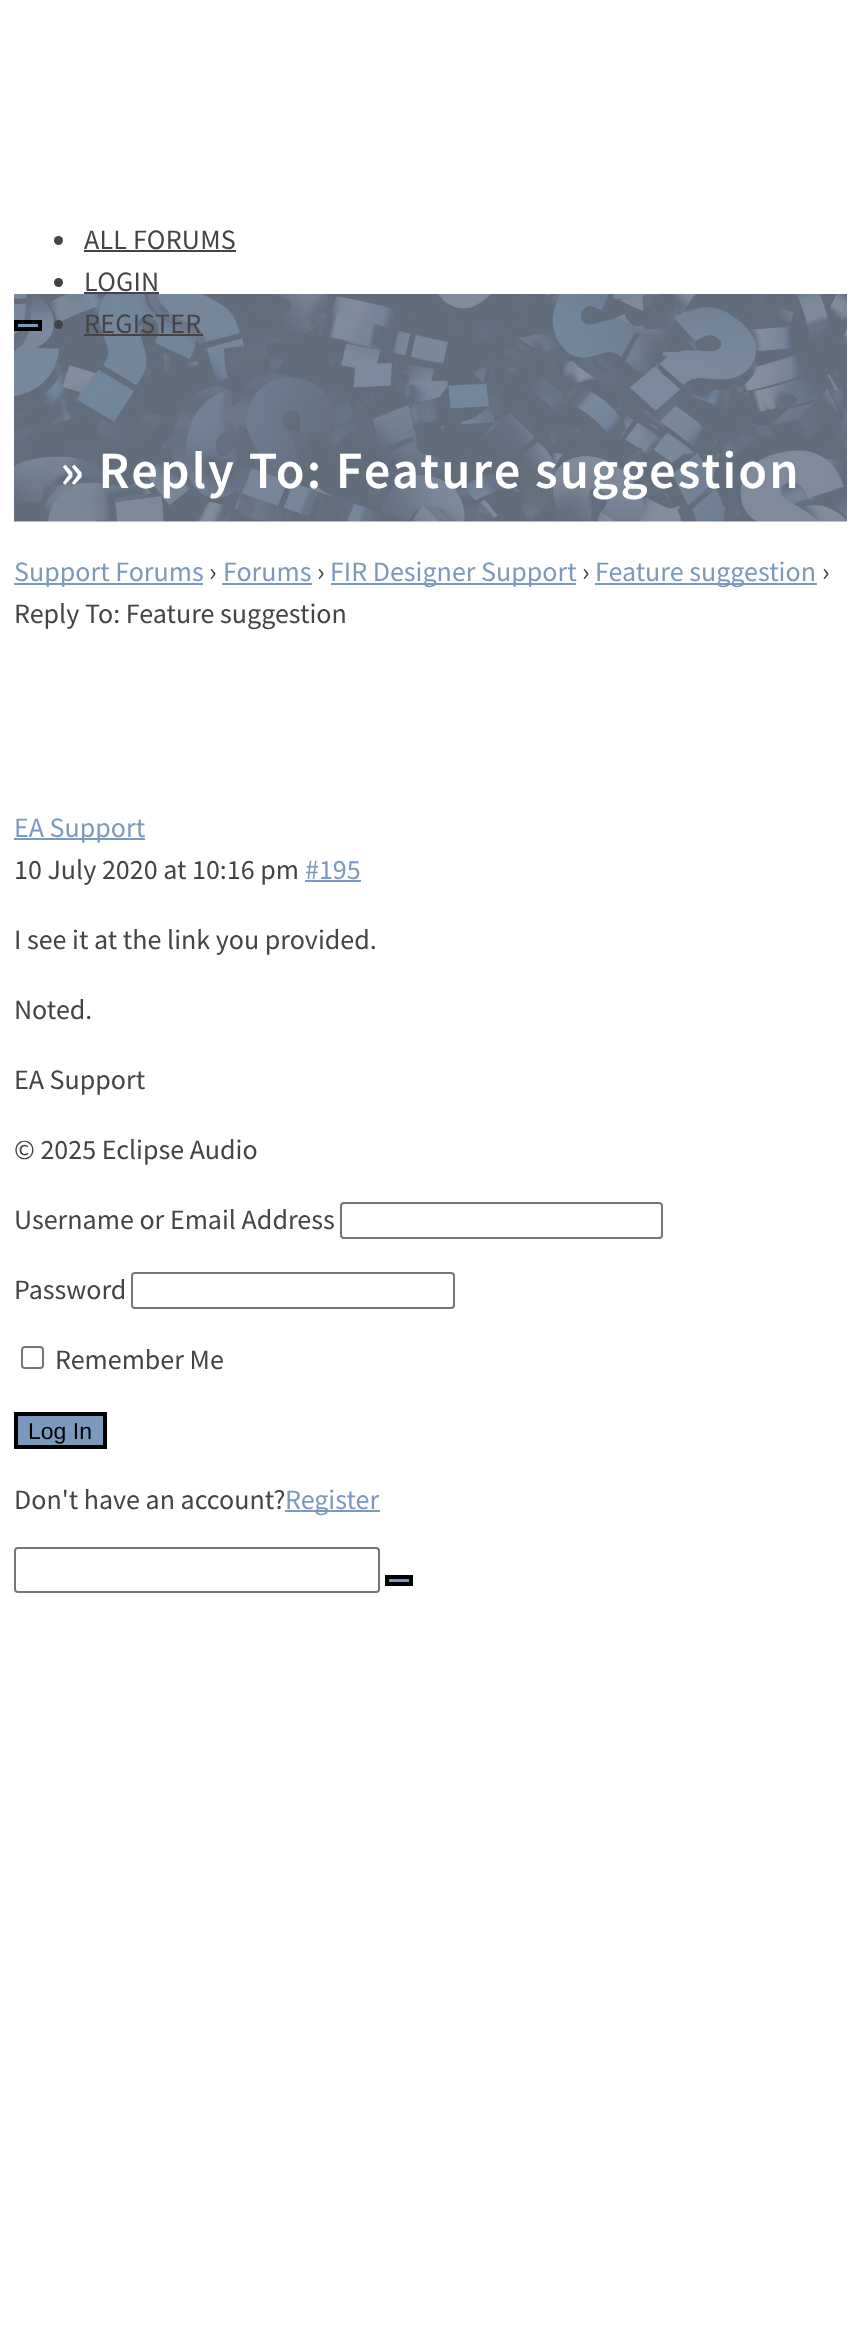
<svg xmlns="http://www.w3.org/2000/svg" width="860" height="2350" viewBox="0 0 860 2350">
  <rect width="100%" height="100%" fill="rgb(255,255,255)"/>
  <image x="14" y="294" width="833" height="228" href="pic1.png"/>
  <rect x="16" y="322" width="24" height="7" fill="rgb(122,153,189)" stroke="rgb(0,0,0)" stroke-width="4"/>
  <circle cx="58.5" cy="240.5" r="4.5" fill="rgb(68,68,68)"/>
  <text x="84" y="249" font-family="Source Sans Pro" font-size="28" letter-spacing="0.25" fill="rgb(68,68,68)">ALL FORUMS</text>
  <rect x="84" y="250" width="152" height="2" fill="rgb(68,68,68)"/>
  <circle cx="58.5" cy="282.5" r="4.5" fill="rgb(68,68,68)"/>
  <text x="84" y="291" font-family="Source Sans Pro" font-size="28" letter-spacing="0.25" fill="rgb(68,68,68)">LOGIN</text>
  <rect x="84" y="292" width="75" height="2" fill="rgb(68,68,68)"/>
  <circle cx="58.5" cy="324.5" r="4.5" fill="rgb(68,68,68)"/>
  <text x="84" y="333" font-family="Source Sans Pro" font-size="28" letter-spacing="0.25" fill="rgb(68,68,68)">REGISTER</text>
  <rect x="84" y="334" width="119" height="2" fill="rgb(68,68,68)"/>
  <text x="60" y="488" font-family="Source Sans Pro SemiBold" font-size="52.5" font-weight="600" letter-spacing="2.1" fill="rgb(255,255,255)">» Reply To: Feature suggestion</text>
  <rect x="14" y="583" width="189" height="2" fill="rgb(122,153,189)"/>
  <text x="14" y="581" font-family="Source Sans Pro" font-size="28" fill="rgb(122,153,189)">Support Forums</text>
  <text x="209" y="581" font-family="Source Sans Pro" font-size="28" fill="rgb(68,68,68)">›</text>
  <text x="223" y="581" font-family="Source Sans Pro" font-size="28" fill="rgb(122,153,189)">Forums</text>
  <rect x="222" y="583" width="90" height="2" fill="rgb(122,153,189)"/>
  <text x="317" y="581" font-family="Source Sans Pro" font-size="28" fill="rgb(68,68,68)">›</text>
  <rect x="331" y="583" width="245" height="2" fill="rgb(122,153,189)"/>
  <text x="330" y="581" font-family="Source Sans Pro" font-size="28" fill="rgb(122,153,189)">FIR Designer Support</text>
  <text x="582" y="581" font-family="Source Sans Pro" font-size="28" fill="rgb(68,68,68)">›</text>
  <rect x="595" y="583" width="222" height="2" fill="rgb(122,153,189)"/>
  <text x="595" y="581" font-family="Source Sans Pro" font-size="28" fill="rgb(122,153,189)">Feature suggestion</text>
  <g font-family="Source Sans Pro" font-size="28" fill="rgb(68,68,68)">
    <text x="822" y="581">›</text>
    <text x="14" y="623">Reply To: Feature suggestion</text>
  </g>
  <rect x="14" y="838" width="131" height="2" fill="rgb(122,153,189)"/>
  <text x="14" y="837" font-family="Source Sans Pro" font-size="28" fill="rgb(122,153,189)">EA Support</text>
  <text x="14" y="879" font-family="Source Sans Pro" font-size="28" fill="rgb(68,68,68)">10 July 2020 at 10:16 pm</text>
  <text x="305" y="879" font-family="Source Sans Pro" font-size="28" fill="rgb(122,153,189)">#195</text>
  <rect x="305" y="880" width="56" height="2" fill="rgb(122,153,189)"/>
  <g font-family="Source Sans Pro" font-size="28" fill="rgb(68,68,68)">
    <text x="14" y="949">I see it at the link you provided.</text>
    <text x="14" y="1019">Noted.</text>
    <text x="14" y="1089">EA Support</text>
    <text x="14" y="1159">© 2025 Eclipse Audio</text>
    <text x="14" y="1229">Username or Email Address</text>
  </g>
  <rect x="341" y="1203" width="321" height="35" rx="3" fill="none" stroke="rgb(118,118,118)" stroke-width="2"/>
  <text x="14" y="1299" font-family="Source Sans Pro" font-size="28" fill="rgb(68,68,68)">Password</text>
  <rect x="132" y="1273" width="322" height="35" rx="3" fill="none" stroke="rgb(118,118,118)" stroke-width="2"/>
  <rect x="22" y="1347" width="21" height="21" rx="3" fill="none" stroke="rgb(118,118,118)" stroke-width="2"/>
  <text x="55" y="1369" font-family="Source Sans Pro" font-size="28" fill="rgb(68,68,68)">Remember Me</text>
  <rect x="16" y="1414" width="89" height="33" fill="rgb(122,153,189)" stroke="rgb(0,0,0)" stroke-width="4"/>
  <text x="28" y="1439" font-family="Liberation Sans" font-size="23" fill="rgb(0,0,0)">Log In</text>
  <text x="14" y="1509" font-family="Source Sans Pro" font-size="28" fill="rgb(68,68,68)">Don't have an account?</text>
  <rect x="285" y="1510" width="95" height="2" fill="rgb(122,153,189)"/>
  <text x="285" y="1509" font-family="Source Sans Pro" font-size="28" fill="rgb(122,153,189)">Register</text>
  <rect x="15" y="1548" width="364" height="44" rx="3" fill="none" stroke="rgb(118,118,118)" stroke-width="2"/>
  <rect x="387" y="1577" width="24" height="7" fill="rgb(122,153,189)" stroke="rgb(0,0,0)" stroke-width="4"/>
</svg>
